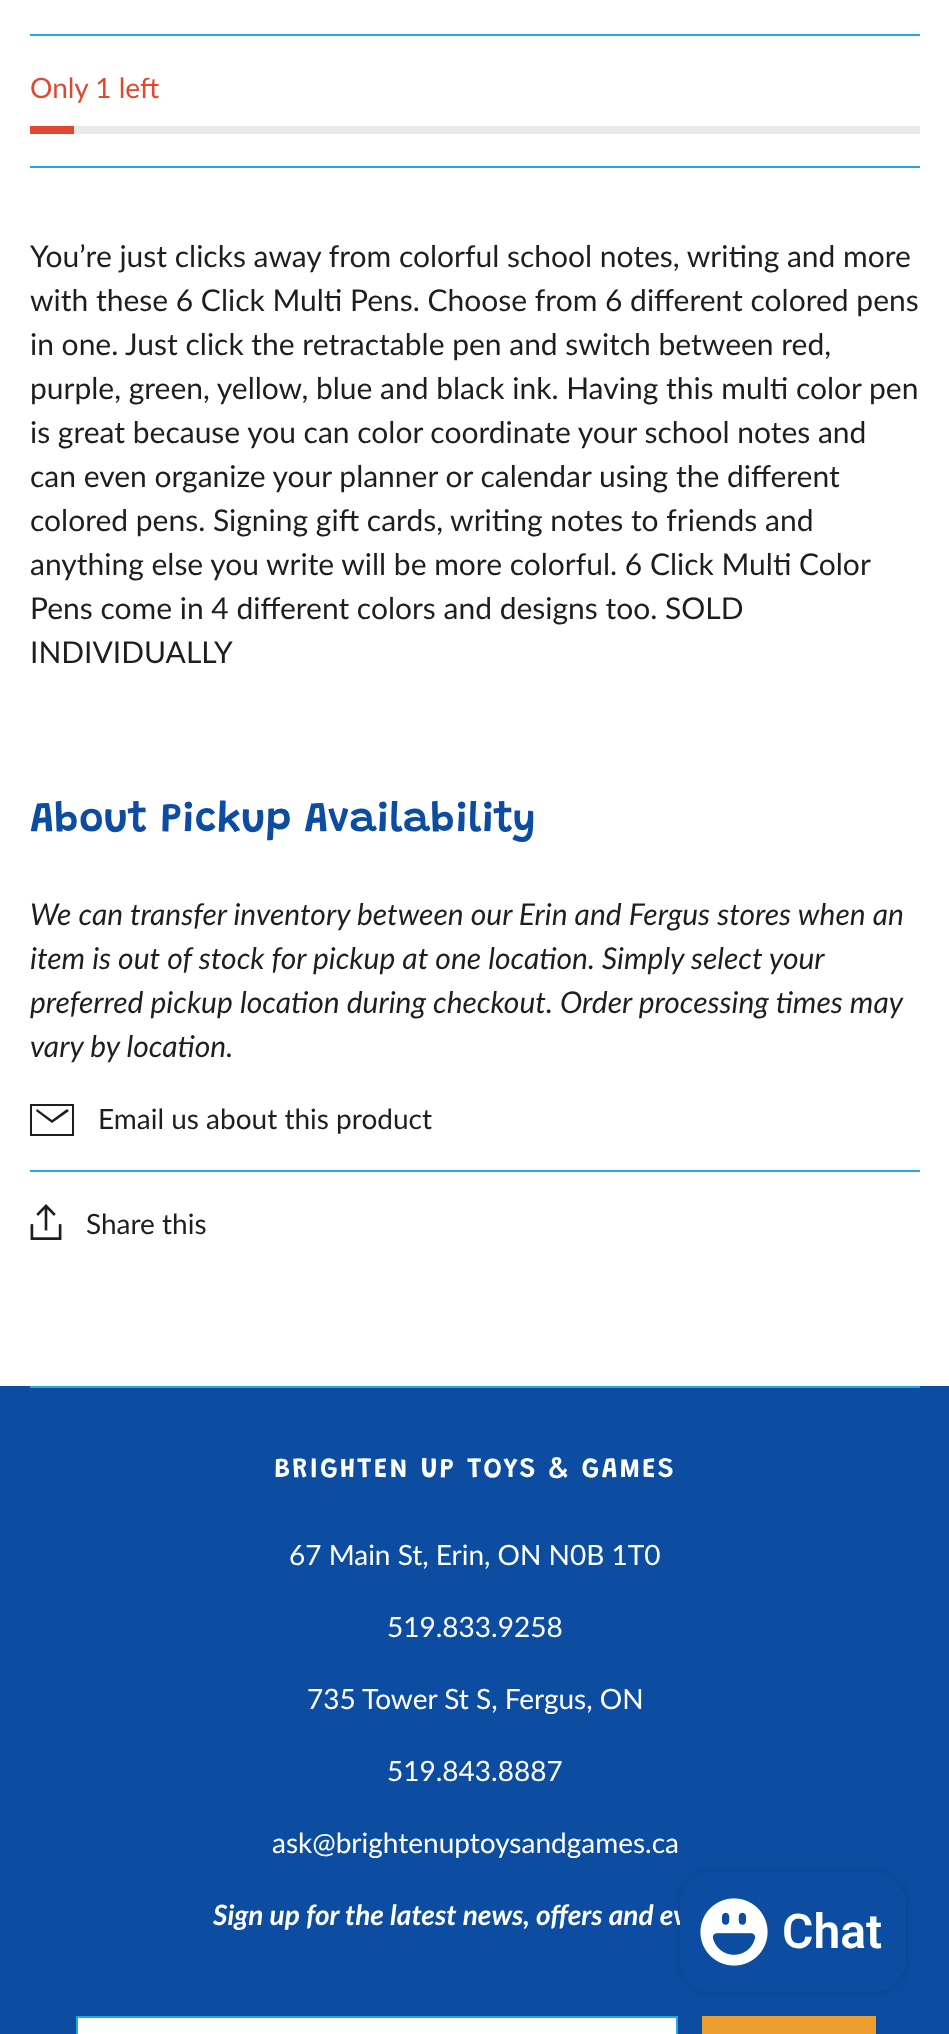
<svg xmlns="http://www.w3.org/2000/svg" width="949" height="2034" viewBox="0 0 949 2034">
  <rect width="100%" height="100%" fill="rgb(255,255,255)"/>
  <rect x="30" y="34" width="890" height="2" fill="rgb(37,167,223)"/>
  <rect x="30" y="166" width="890" height="2" fill="rgb(37,167,223)"/>
  <text x="30" y="98" font-family="Lato" font-size="28" fill="rgb(226,71,47)">Only 1 left</text>
  <rect x="74" y="126" width="846" height="8" fill="rgb(233,233,233)"/>
  <rect x="30" y="126" width="44" height="8" fill="rgb(226,71,47)"/>
  <g font-family="Lato" font-size="30" fill="rgb(30,30,30)">
    <text>
      <tspan x="30" y="267">You’re just clicks away from colorful school notes, writing and more</tspan>
      <tspan x="30" y="311">with these 6 Click Multi Pens. Choose from 6 different colored pens</tspan>
      <tspan x="30" y="355">in one. Just click the retractable pen and switch between red,</tspan>
      <tspan x="30" y="399">purple, green, yellow, blue and black ink. Having this multi color pen</tspan>
      <tspan x="30" y="443">is great because you can color coordinate your school notes and</tspan>
      <tspan x="30" y="487">can even organize your planner or calendar using the different</tspan>
      <tspan x="30" y="531">colored pens. Signing gift cards, writing notes to friends and</tspan>
      <tspan x="30" y="575">anything else you write will be more colorful. 6 Click Multi Color</tspan>
      <tspan x="30" y="619">Pens come in 4 different colors and designs too. SOLD</tspan>
      <tspan x="30" y="663">INDIVIDUALLY</tspan>
    </text>
  </g>
  <text x="30" y="831" font-family="Grandstander" font-size="42" font-weight="600" fill="rgb(12,77,162)">About Pickup Availability</text>
  <g font-family="Lato" font-size="30" font-style="italic" fill="rgb(30,30,30)">
    <text>
      <tspan x="30" y="925">We can transfer inventory between our Erin and Fergus stores when an</tspan>
      <tspan x="30" y="969">item is out of stock for pickup at one location. Simply select your</tspan>
      <tspan x="30" y="1013">preferred pickup location during checkout. Order processing times may</tspan>
      <tspan x="30" y="1057">vary by location.</tspan>
    </text>
  </g>
  <rect x="30" y="1170" width="890" height="2" fill="rgb(37,167,223)"/>
  <path d="M32 1106H72V1134H32ZM30 1104H74V1136H30ZM36 1111L52 1123L69 1111L67 1109L52 1120L37 1109Z" fill="rgb(30,30,30)" fill-rule="evenodd"/>
  <text x="98" y="1129" font-family="Lato" font-size="28" fill="rgb(30,30,30)">Email us about this product</text>
  <image x="30" y="1204" width="32" height="36" href="pic1.png"/>
  <text x="86" y="1234" font-family="Lato" font-size="28" fill="rgb(30,30,30)">Share this</text>
  <rect x="0" y="1386" width="949" height="648" fill="rgb(12,77,162)"/>
  <rect x="30" y="1386" width="890" height="2" fill="rgb(37,167,223)"/>
  <text x="274" y="1477" font-family="Grandstander" font-size="28" font-weight="600" letter-spacing="2.25" fill="rgb(255,255,255)">BRIGHTEN UP TOYS &amp; GAMES</text>
  <g font-family="Lato" font-size="28" fill="rgb(255,255,255)">
    <text x="289" y="1565">67 Main St, Erin, ON N0B 1T0</text>
    <text x="387" y="1637">519.833.9258</text>
    <text x="307" y="1709">735 Tower St S, Fergus, ON</text>
    <text x="387" y="1781">519.843.8887</text>
    <text x="272" y="1853">ask@brightenuptoysandgames.ca</text>
  </g>
  <text x="213" y="1925" font-family="Lato" font-size="28" font-weight="bold" font-style="italic" fill="rgb(255,255,255)">Sign up for the latest news, offers and ev</text>
  <rect x="77" y="2017" width="600" height="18" fill="rgb(255,255,255)" stroke="rgb(37,167,223)" stroke-width="2"/>
  <rect x="702" y="2016" width="174" height="18" fill="rgb(235,158,45)"/>
  <rect x="680" y="1872" width="226" height="120" rx="32" fill="rgba(0,0,0,0.15)" filter="blur(5px)"/>
  <rect x="680" y="1872" width="226" height="120" rx="32" fill="rgb(12,77,162)"/>
  <image x="700" y="1898" width="68" height="68" href="pic2.png"/>
  <text x="782" y="1948" font-family="Roboto" font-size="48" font-weight="600" fill="rgb(255,255,255)">Chat</text>
</svg>
